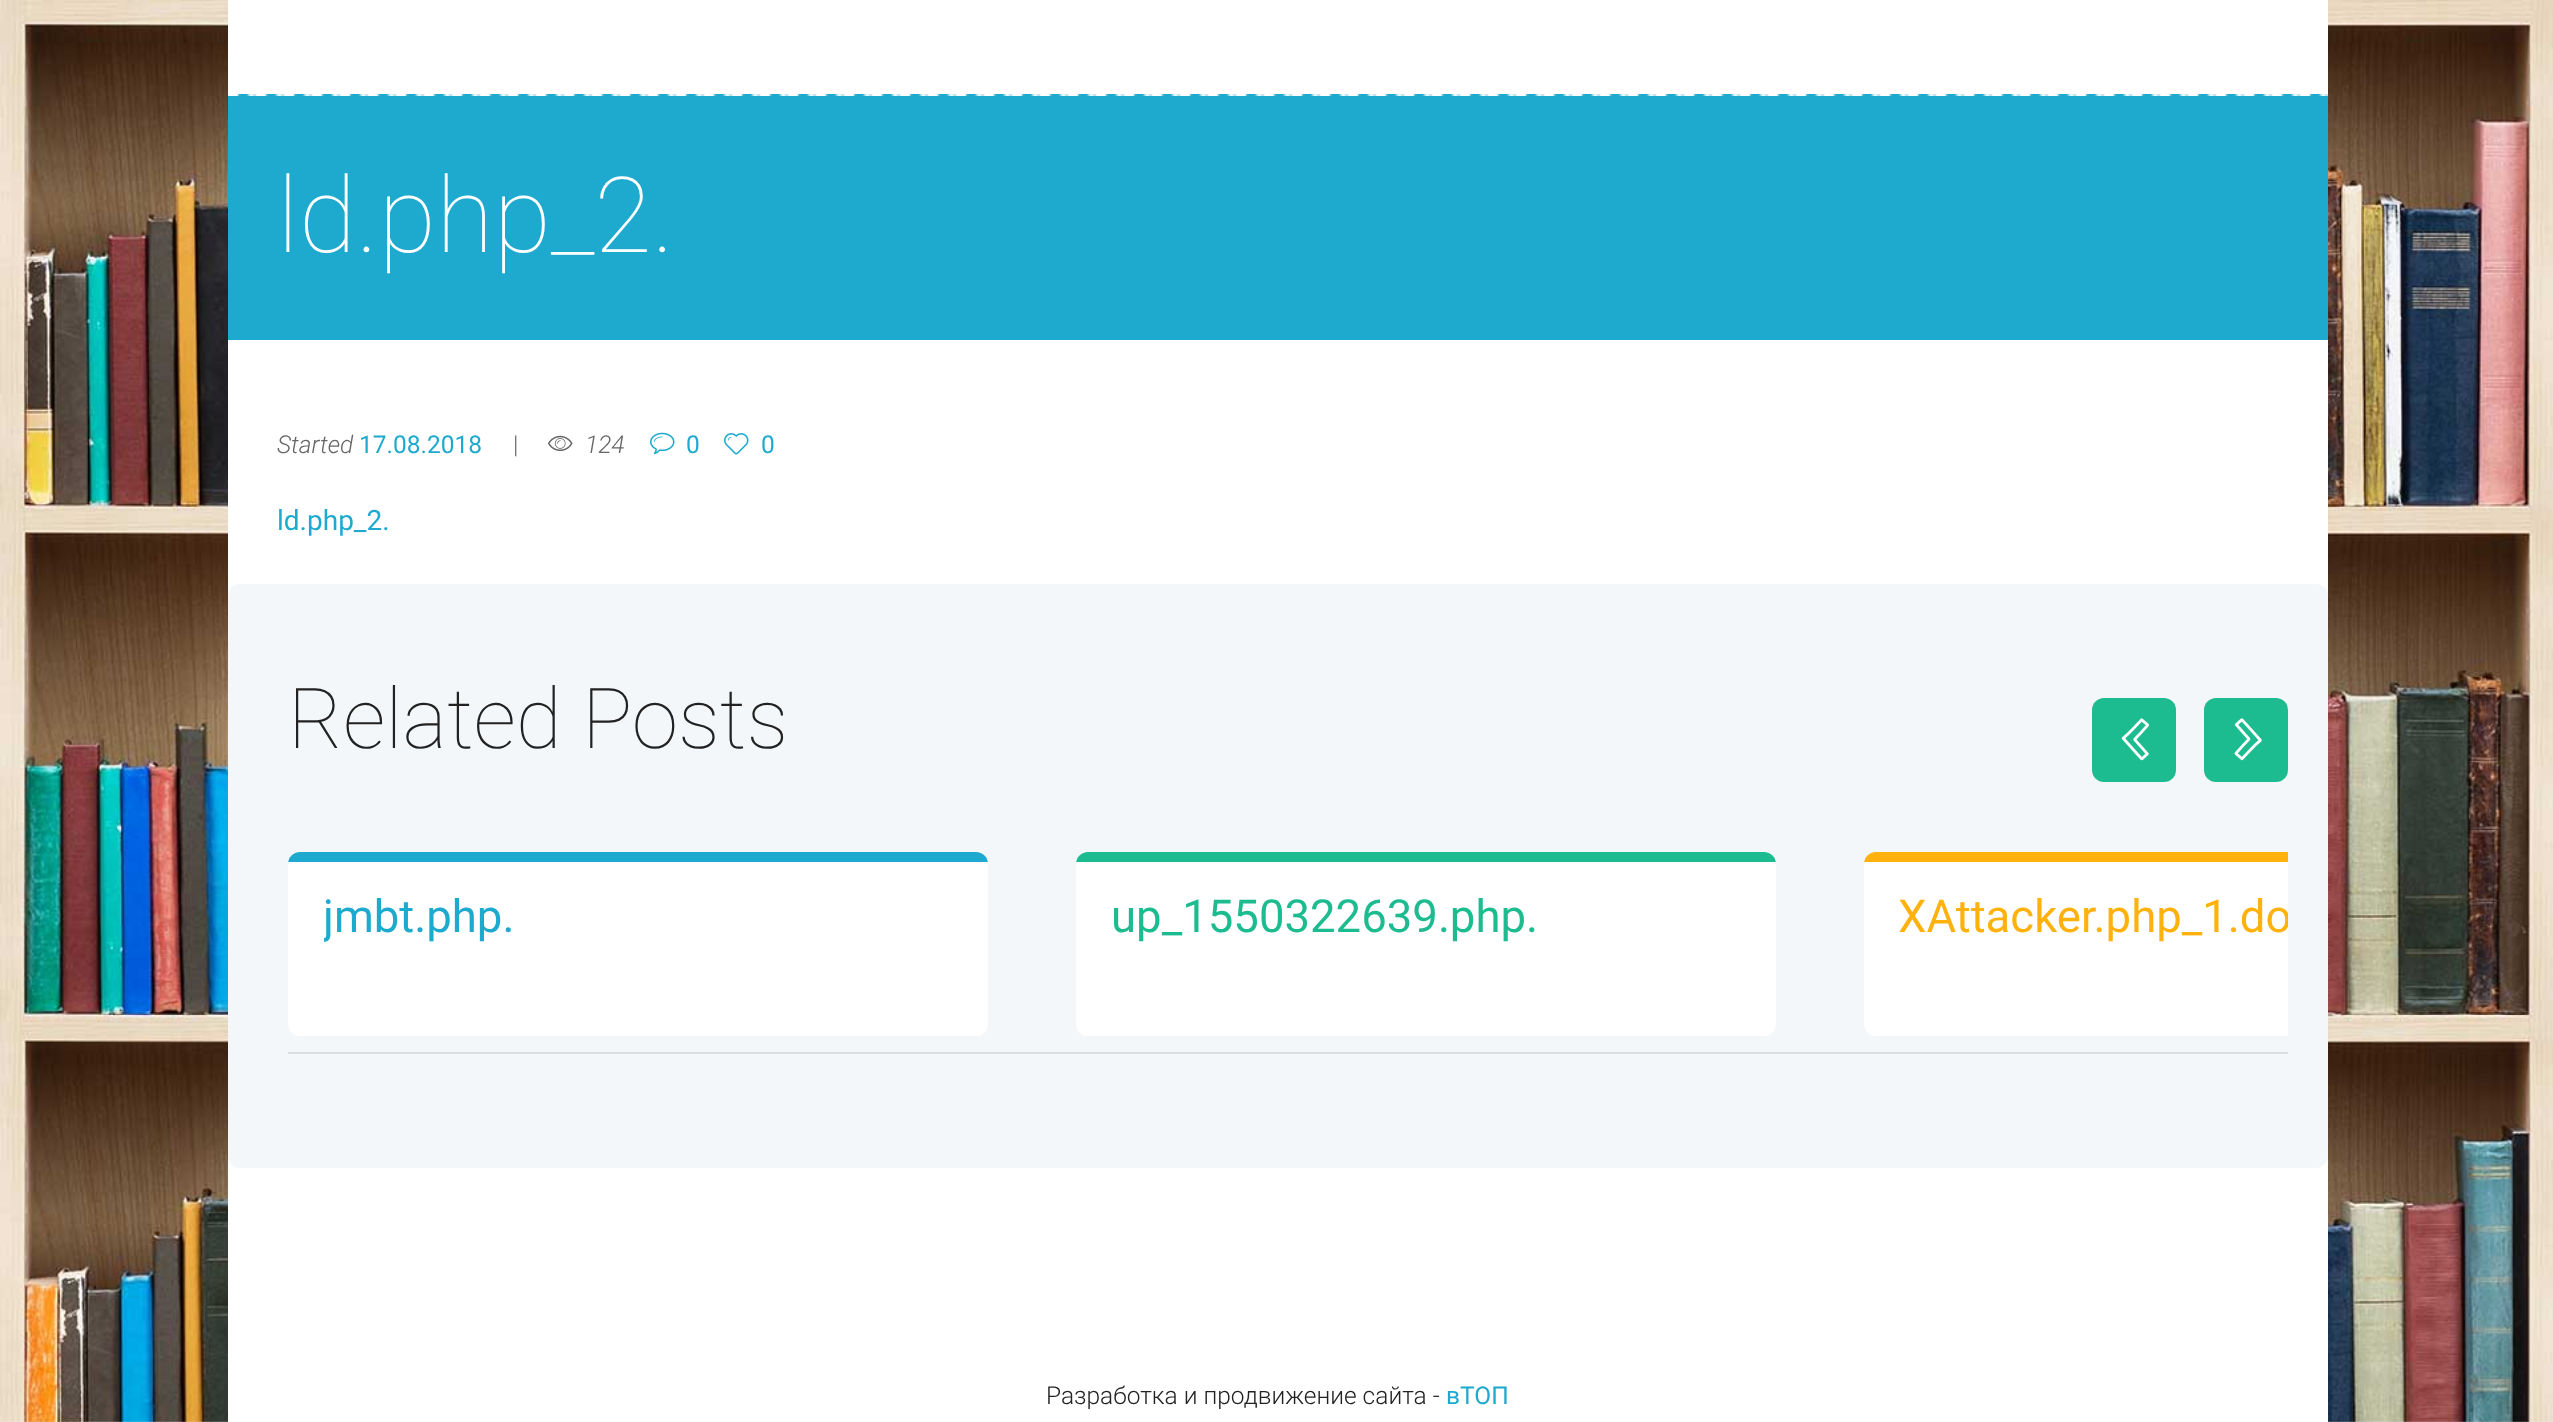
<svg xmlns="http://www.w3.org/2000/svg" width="2553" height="1422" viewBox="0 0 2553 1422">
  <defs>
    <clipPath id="clip1"><rect x="288" y="852" width="700" height="184" rx="12"/></clipPath>
    <clipPath id="clip2"><rect x="324" y="890" width="630" height="118"/></clipPath>
    <clipPath id="clip3"><rect x="1076" y="852" width="700" height="184" rx="12"/></clipPath>
    <clipPath id="clip4"><rect x="1864" y="852" width="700" height="184" rx="12"/></clipPath>
    <clipPath id="clip5"><rect x="1898" y="890" width="390" height="118"/></clipPath>
  </defs>
  <rect width="100%" height="100%" fill="rgb(255,255,255)"/>
  <image x="0" y="0" width="2553" height="1422" href="pic1.png"/>
  <rect x="228" y="0" width="2100" height="1422" fill="rgb(255,255,255)"/>
  <rect x="228" y="94" width="2100" height="246" fill="rgb(30,170,206)"/>
  <image x="228" y="94" width="2100" height="2" href="pic2.png"/>
  <text x="277" y="252" font-family="Roboto" font-size="105" font-weight="100" fill="rgb(255,255,255)">ld.php_2.</text>
  <text x="277" y="453" font-family="Roboto" font-size="24.5" font-weight="300" font-style="italic" fill="rgb(102,102,102)">Started</text>
  <text x="359" y="453" font-family="Roboto" font-size="24.5" fill="rgb(30,170,206)">17.08.2018</text>
  <text x="513" y="453" font-family="Roboto" font-size="24.5" font-weight="300" fill="rgb(102,102,102)">|</text>
  <image x="548" y="435" width="25" height="17" href="pic3.png"/>
  <text x="585" y="453" font-family="Roboto" font-size="24.5" font-weight="300" font-style="italic" fill="rgb(102,102,102)">124</text>
  <image x="650" y="432" width="25" height="23" href="pic4.png"/>
  <text x="686" y="453" font-family="Roboto" font-size="24.5" fill="rgb(30,170,206)">0</text>
  <image x="724" y="433" width="25" height="22" href="pic5.png"/>
  <text x="761" y="453" font-family="Roboto" font-size="24.5" fill="rgb(30,170,206)">0</text>
  <text x="277" y="530" font-family="Roboto" font-size="28" fill="rgb(30,170,206)">ld.php_2.</text>
  <rect x="228" y="584" width="2100" height="584" rx="12" fill="rgb(244,247,249)"/>
  <text x="288" y="748" font-family="Roboto" font-size="84" font-weight="100" fill="rgb(34,34,34)">Related Posts</text>
  <rect x="2092" y="698" width="84" height="84" rx="12" fill="rgb(29,187,144)"/>
  <image x="2121" y="718" width="29" height="43" href="pic6.png"/>
  <rect x="2204" y="698" width="84" height="84" rx="12" fill="rgb(29,187,144)"/>
  <image x="2234" y="718" width="28" height="43" href="pic7.png"/>
  <rect x="288" y="852" width="700" height="184" rx="12" fill="rgb(255,255,255)"/>
  <g clip-path="url(#clip1)">
    <rect x="288" y="852" width="700" height="10" fill="rgb(30,170,206)"/>
  </g>
  <g clip-path="url(#clip2)">
    <text x="323" y="932" font-family="Roboto" font-size="45.5" fill="rgb(30,170,206)">jmbt.php.</text>
  </g>
  <rect x="1076" y="852" width="700" height="184" rx="12" fill="rgb(255,255,255)"/>
  <g clip-path="url(#clip3)">
    <rect x="1076" y="852" width="700" height="10" fill="rgb(29,187,144)"/>
  </g>
  <text x="1111" y="932" font-family="Roboto" font-size="45.5" fill="rgb(29,187,144)">up_1550322639.php.</text>
  <path d="M1876 852H2288V1036H1876C1869.5 1036 1864 1030.5 1864 1024V864C1864 857.5 1869.5 852 1876 852Z" fill="rgb(255,255,255)"/>
  <g clip-path="url(#clip4)">
    <rect x="1864" y="852" width="424" height="10" fill="rgb(255,178,14)"/>
  </g>
  <g clip-path="url(#clip5)">
    <text x="1898" y="932" font-family="Roboto" font-size="45.5" fill="rgb(255,178,14)">XAttacker.php_1.do</text>
  </g>
  <rect x="288" y="1052" width="2000" height="2" fill="rgb(221,221,221)"/>
  <text x="1046" y="1404" font-family="Roboto" font-size="24.5" font-weight="300" fill="rgb(34,34,34)">Разработка и продвижение сайта -</text>
  <text x="1446" y="1404" font-family="Roboto" font-size="24.5" fill="rgb(30,170,206)">вТОП</text>
</svg>
